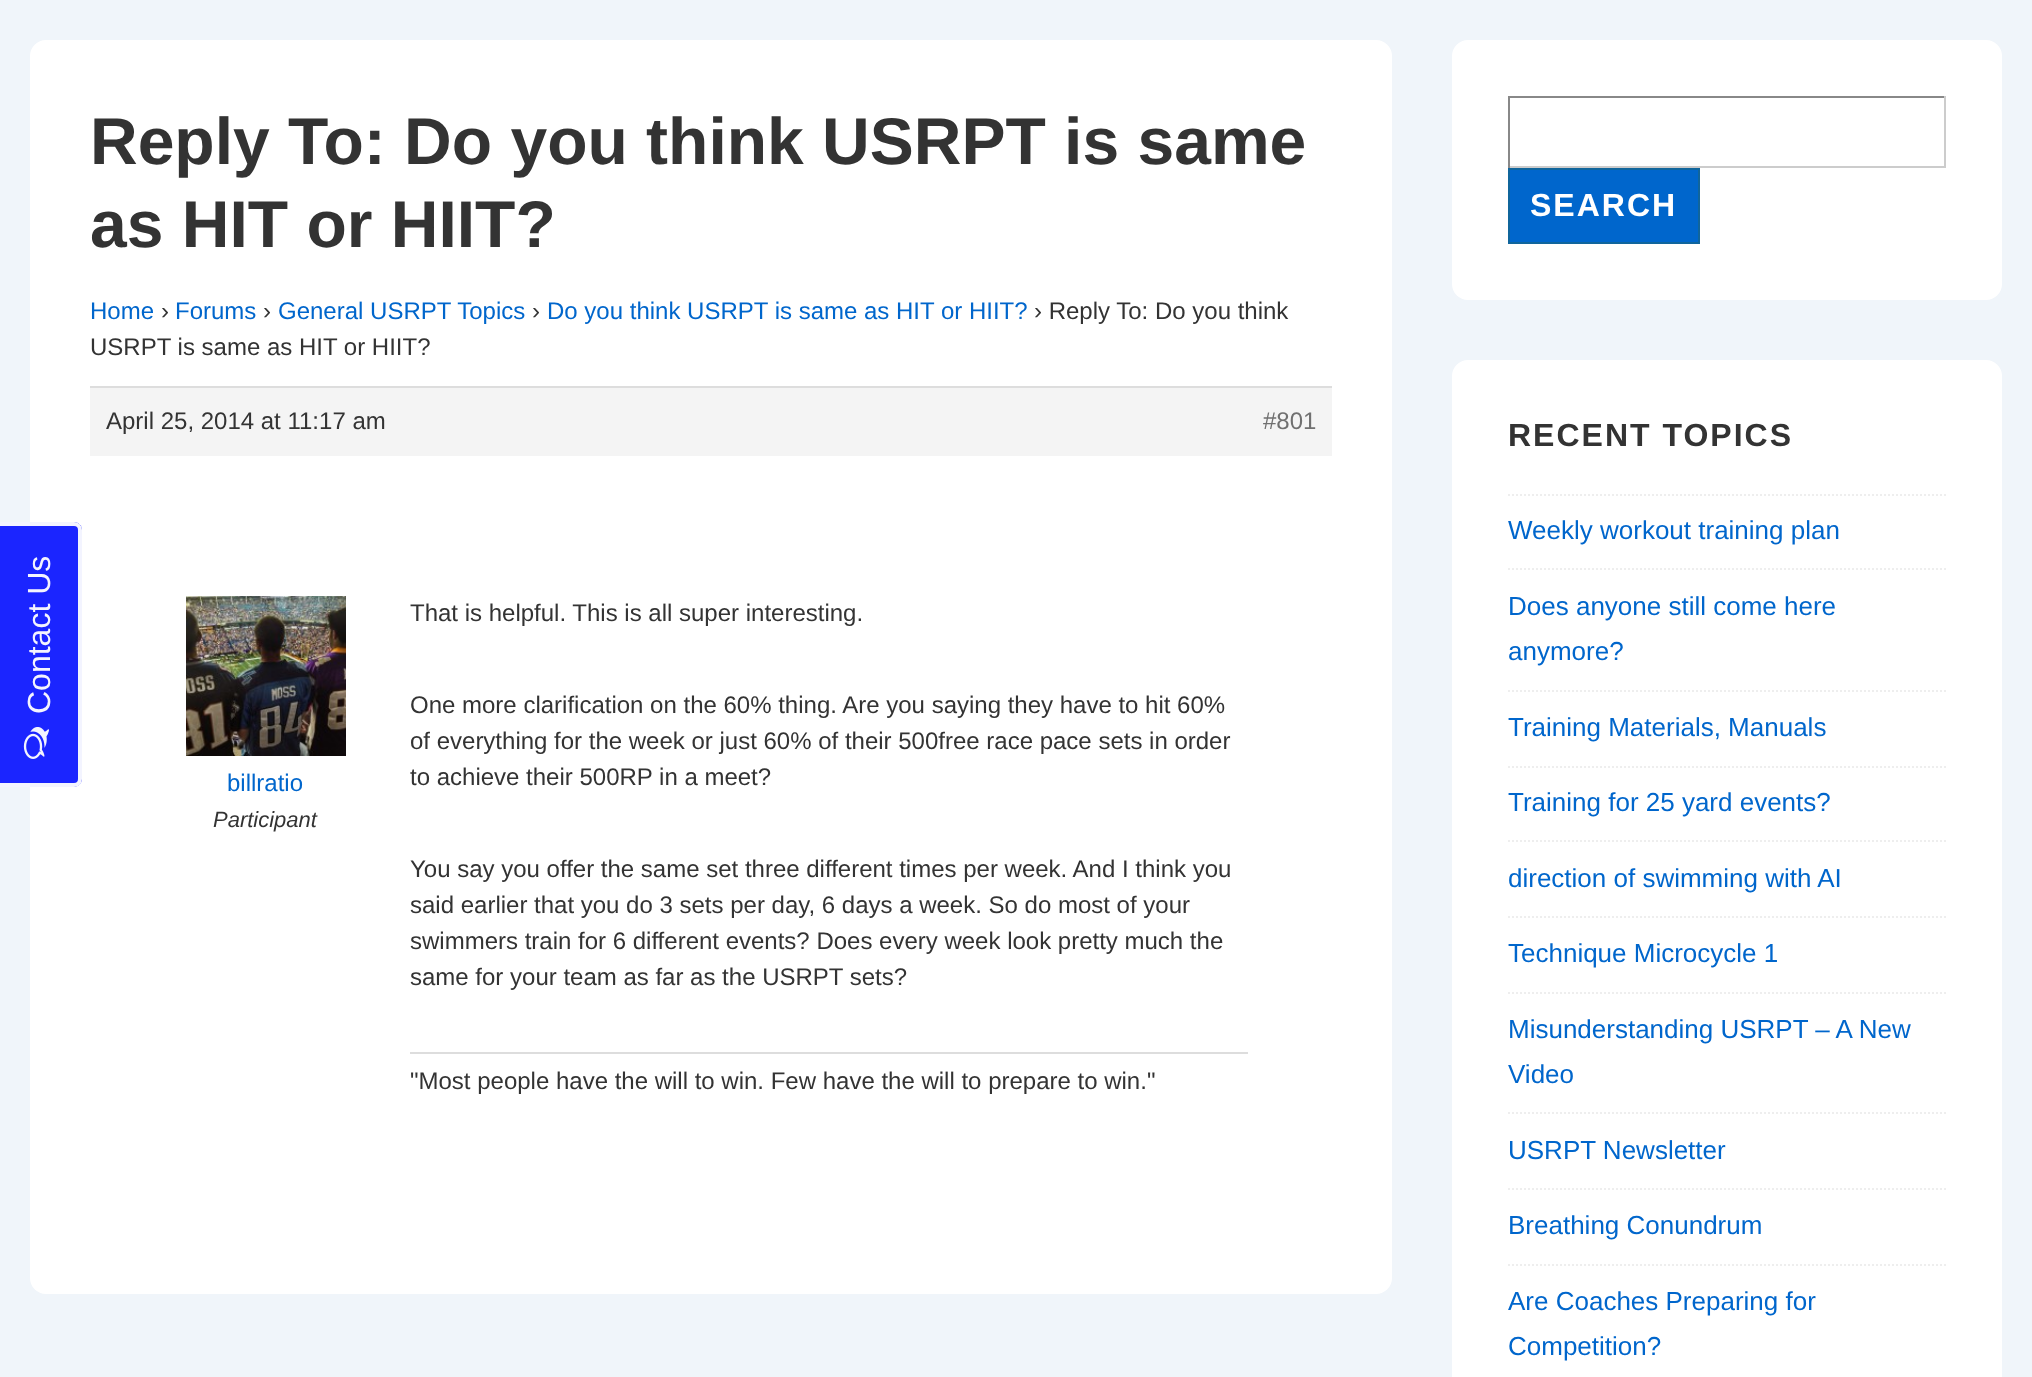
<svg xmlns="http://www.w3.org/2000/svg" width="2032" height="1377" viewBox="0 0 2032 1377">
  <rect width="100%" height="100%" fill="rgb(240,245,250)"/>
  <rect x="30" y="40" width="1362" height="1254" rx="16" fill="rgb(255,255,255)"/>
  <path d="M-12 779V530C-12 525-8 522-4 522H74C78 522 82 525 82 530V779C82 783 78 787 74 787H-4C-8 787-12 783-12 779Z" fill="rgba(15,25,255,0.95)"/>
  <path d="M-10 779V530C-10 526.5-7.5 524-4 524H74C77.5 524 80 526.5 80 530V779C80 782.5 77.5 785 74 785H-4C-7.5 785-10 782.5-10 779Z" fill="none" stroke="rgba(255,255,255,0.95)" stroke-width="4"/>
  <text x="50" y="714" transform="rotate(-90 50 714)" font-family="Liberation Sans" font-size="32" fill="rgb(244,244,255)">Contact Us</text>
  <image x="23" y="727" width="26" height="32" href="pic1.png"/>
  <g font-family="Liberation Sans" font-size="66" font-weight="bold" fill="rgb(51,51,51)">
    <text>
      <tspan x="90" y="164">Reply To: Do you think USRPT is same</tspan>
      <tspan x="90" y="247">as HIT or HIIT?</tspan>
    </text>
  </g>
  <text x="90" y="319" font-family="Liberation Sans" font-size="24" fill="rgb(0,102,204)">Home</text>
  <text x="161" y="319" font-family="Liberation Sans" font-size="24" fill="rgb(51,51,51)">›</text>
  <text x="175" y="319" font-family="Liberation Sans" font-size="24" fill="rgb(0,102,204)">Forums</text>
  <text x="263" y="319" font-family="Liberation Sans" font-size="24" fill="rgb(51,51,51)">›</text>
  <text x="278" y="319" font-family="Liberation Sans" font-size="24" fill="rgb(0,102,204)">General USRPT Topics</text>
  <text x="532" y="319" font-family="Liberation Sans" font-size="24" fill="rgb(51,51,51)">›</text>
  <text x="547" y="319" font-family="Liberation Sans" font-size="24" fill="rgb(0,102,204)">Do you think USRPT is same as HIT or HIIT?</text>
  <g font-family="Liberation Sans" font-size="24" fill="rgb(51,51,51)">
    <text x="1034" y="319">› Reply To: Do you think</text>
    <text x="90" y="355">USRPT is same as HIT or HIIT?</text>
  </g>
  <rect x="90" y="388" width="1242" height="68" fill="rgb(244,244,244)"/>
  <rect x="90" y="386" width="1242" height="2" fill="rgb(221,221,221)"/>
  <text x="106" y="429" font-family="Liberation Sans" font-size="24" fill="rgb(51,51,51)">April 25, 2014 at 11:17 am</text>
  <text x="1263" y="429" font-family="Liberation Sans" font-size="24" fill="rgb(112,112,112)">#801</text>
  <image x="186" y="596" width="160" height="160" href="pic2.png"/>
  <text x="227" y="791" font-family="Liberation Sans" font-size="24" fill="rgb(0,102,204)">billratio</text>
  <text x="213" y="827" font-family="Liberation Sans" font-size="22" font-style="italic" fill="rgb(51,51,51)">Participant</text>
  <g font-family="Liberation Sans" font-size="24" fill="rgb(51,51,51)">
    <text x="410" y="621">That is helpful. This is all super interesting.</text>
    <text>
      <tspan x="410" y="713">One more clarification on the 60% thing. Are you saying they have to hit 60%</tspan>
      <tspan x="410" y="749">of everything for the week or just 60% of their 500free race pace sets in order</tspan>
      <tspan x="410" y="785">to achieve their 500RP in a meet?</tspan>
    </text>
    <text>
      <tspan x="410" y="877">You say you offer the same set three different times per week. And I think you</tspan>
      <tspan x="410" y="913">said earlier that you do 3 sets per day, 6 days a week. So do most of your</tspan>
      <tspan x="410" y="949">swimmers train for 6 different events? Does every week look pretty much the</tspan>
      <tspan x="410" y="985">same for your team as far as the USRPT sets?</tspan>
    </text>
  </g>
  <rect x="410" y="1052" width="838" height="2" fill="rgb(221,221,221)"/>
  <text x="410" y="1089" font-family="Liberation Sans" font-size="24" fill="rgb(51,51,51)">"Most people have the will to win. Few have the will to prepare to win."</text>
  <rect x="1452" y="40" width="550" height="260" rx="16" fill="rgb(255,255,255)"/>
  <rect x="1508" y="96" width="438" height="2" fill="rgb(136,136,136)"/>
  <rect x="1944" y="96" width="2" height="72" fill="rgb(204,204,204)"/>
  <rect x="1508" y="166" width="438" height="2" fill="rgb(204,204,204)"/>
  <rect x="1508" y="96" width="2" height="72" fill="rgb(136,136,136)"/>
  <rect x="1509" y="169" width="190" height="74" fill="rgb(0,102,204)" stroke="rgb(16,101,156)" stroke-width="2"/>
  <text x="1530" y="216" font-family="Liberation Sans" font-size="32" font-weight="bold" letter-spacing="2" fill="rgb(255,255,255)">SEARCH</text>
  <rect x="1452" y="360" width="550" height="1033" rx="16" fill="rgb(255,255,255)"/>
  <text x="1508" y="446" font-family="Liberation Sans" font-size="32" font-weight="bold" letter-spacing="2" fill="rgb(51,51,51)">RECENT TOPICS</text>
  <path d="M1508 495H1946" fill="none" stroke="rgb(238,238,238)" stroke-width="2" stroke-dasharray="2 2"/>
  <text x="1508" y="539" font-family="Liberation Sans" font-size="26" fill="rgb(0,102,204)">Weekly workout training plan</text>
  <path d="M1508 569H1946" fill="none" stroke="rgb(238,238,238)" stroke-width="2" stroke-dasharray="2 2"/>
  <g font-family="Liberation Sans" font-size="26" fill="rgb(0,102,204)">
    <text>
      <tspan x="1508" y="615">Does anyone still come here</tspan>
      <tspan x="1508" y="660">anymore?</tspan>
    </text>
  </g>
  <path d="M1508 691H1946" fill="none" stroke="rgb(238,238,238)" stroke-width="2" stroke-dasharray="2 2"/>
  <text x="1508" y="736" font-family="Liberation Sans" font-size="26" fill="rgb(0,102,204)">Training Materials, Manuals</text>
  <path d="M1508 767H1946" fill="none" stroke="rgb(238,238,238)" stroke-width="2" stroke-dasharray="2 2"/>
  <text x="1508" y="811" font-family="Liberation Sans" font-size="26" fill="rgb(0,102,204)">Training for 25 yard events?</text>
  <path d="M1508 841H1946" fill="none" stroke="rgb(238,238,238)" stroke-width="2" stroke-dasharray="2 2"/>
  <text x="1508" y="887" font-family="Liberation Sans" font-size="26" fill="rgb(0,102,204)">direction of swimming with AI</text>
  <path d="M1508 917H1946" fill="none" stroke="rgb(238,238,238)" stroke-width="2" stroke-dasharray="2 2"/>
  <text x="1508" y="962" font-family="Liberation Sans" font-size="26" fill="rgb(0,102,204)">Technique Microcycle 1</text>
  <path d="M1508 993H1946" fill="none" stroke="rgb(238,238,238)" stroke-width="2" stroke-dasharray="2 2"/>
  <g font-family="Liberation Sans" font-size="26" fill="rgb(0,102,204)">
    <text>
      <tspan x="1508" y="1038">Misunderstanding USRPT – A New</tspan>
      <tspan x="1508" y="1083">Video</tspan>
    </text>
  </g>
  <path d="M1508 1113H1946" fill="none" stroke="rgb(238,238,238)" stroke-width="2" stroke-dasharray="2 2"/>
  <text x="1508" y="1159" font-family="Liberation Sans" font-size="26" fill="rgb(0,102,204)">USRPT Newsletter</text>
  <path d="M1508 1189H1946" fill="none" stroke="rgb(238,238,238)" stroke-width="2" stroke-dasharray="2 2"/>
  <text x="1508" y="1234" font-family="Liberation Sans" font-size="26" fill="rgb(0,102,204)">Breathing Conundrum</text>
  <path d="M1508 1265H1946" fill="none" stroke="rgb(238,238,238)" stroke-width="2" stroke-dasharray="2 2"/>
  <g font-family="Liberation Sans" font-size="26" fill="rgb(0,102,204)">
    <text>
      <tspan x="1508" y="1310">Are Coaches Preparing for</tspan>
      <tspan x="1508" y="1355">Competition?</tspan>
    </text>
  </g>
</svg>
